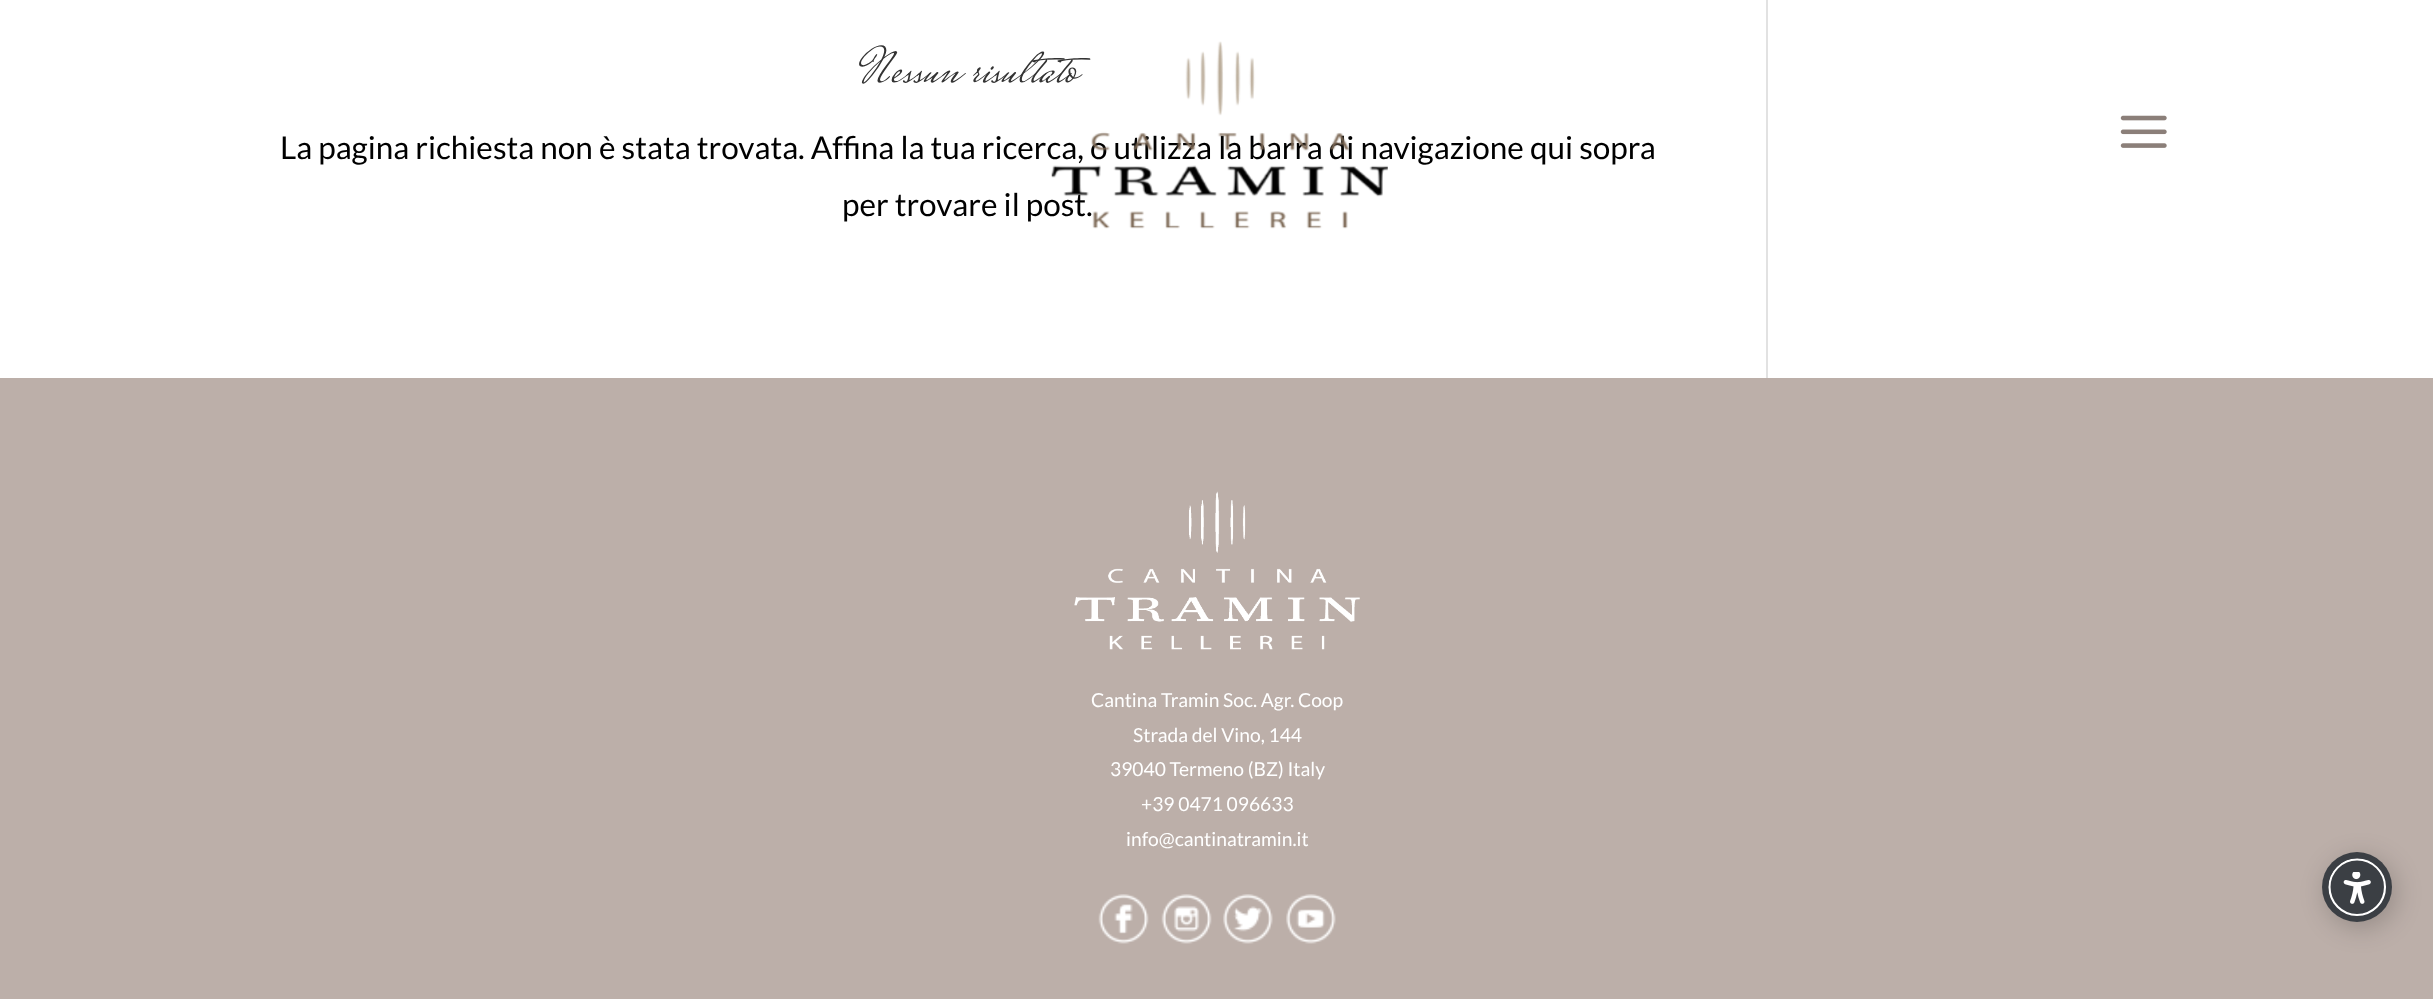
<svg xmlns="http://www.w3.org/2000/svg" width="2433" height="999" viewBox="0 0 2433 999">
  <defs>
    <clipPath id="clip1"><rect x="2328" y="858" width="59" height="59" rx="29.5"/></clipPath>
  </defs>
  <rect width="100%" height="100%" fill="rgb(255,255,255)"/>
  <text x="859" y="82" font-family="Mrs Saint Delafield" font-size="52.5" fill="rgb(51,51,51)">Nessun risultato</text>
  <g font-family="Lato" font-size="31.5" fill="rgb(0,0,0)">
    <text x="280" y="159">La pagina richiesta non è stata trovata. Affina la tua ricerca, o utilizza la barra di navigazione qui sopra</text>
    <text x="842" y="216">per trovare il post.</text>
  </g>
  <image x="1051" y="41" width="337" height="188" href="pic1.png"/>
  <image x="2120" y="115" width="47" height="33" href="pic2.png"/>
  <rect x="1766" y="0" width="2" height="378" fill="rgb(226,226,226)"/>
  <rect x="0" y="378" width="2433" height="621" fill="rgb(188,175,169)"/>
  <image x="1074" y="491" width="286" height="159" href="pic3.png"/>
  <g font-family="Lato" font-size="19.25" fill="rgb(255,255,255)">
    <text x="1091" y="707">Cantina Tramin Soc. Agr. Coop</text>
    <text x="1133" y="742">Strada del Vino, 144</text>
    <text x="1110" y="776">39040 Termeno (BZ) Italy</text>
    <text x="1141" y="811">+39 0471 096633</text>
    <text x="1126" y="846">info@cantinatramin.it</text>
  </g>
  <image x="1098" y="894" width="51" height="50" href="pic4.png"/>
  <image x="1161" y="894" width="51" height="50" href="pic5.png"/>
  <image x="1223" y="894" width="50" height="50" href="pic6.png"/>
  <image x="1286" y="894" width="50" height="50" href="pic7.png"/>
  <rect x="2326" y="858" width="70" height="70" rx="35" fill="rgba(0,0,0,0.2)" filter="blur(13px)"/>
  <circle cx="2357" cy="887" r="35" fill="rgb(59,63,68)"/>
  <g clip-path="url(#clip1)">
    <path d="M2329.5 887C2329.5 872 2342 859.5 2357 859.5C2372.5 859.5 2385 872 2385 887C2385 902.5 2372.5 915 2357 915C2342 915 2329.5 902.5 2329.5 887" fill="none" stroke="rgb(255,255,255)" stroke-width="2.1"/>
  </g>
  <image x="2343" y="872" width="28" height="32" href="pic8.png"/>
</svg>
